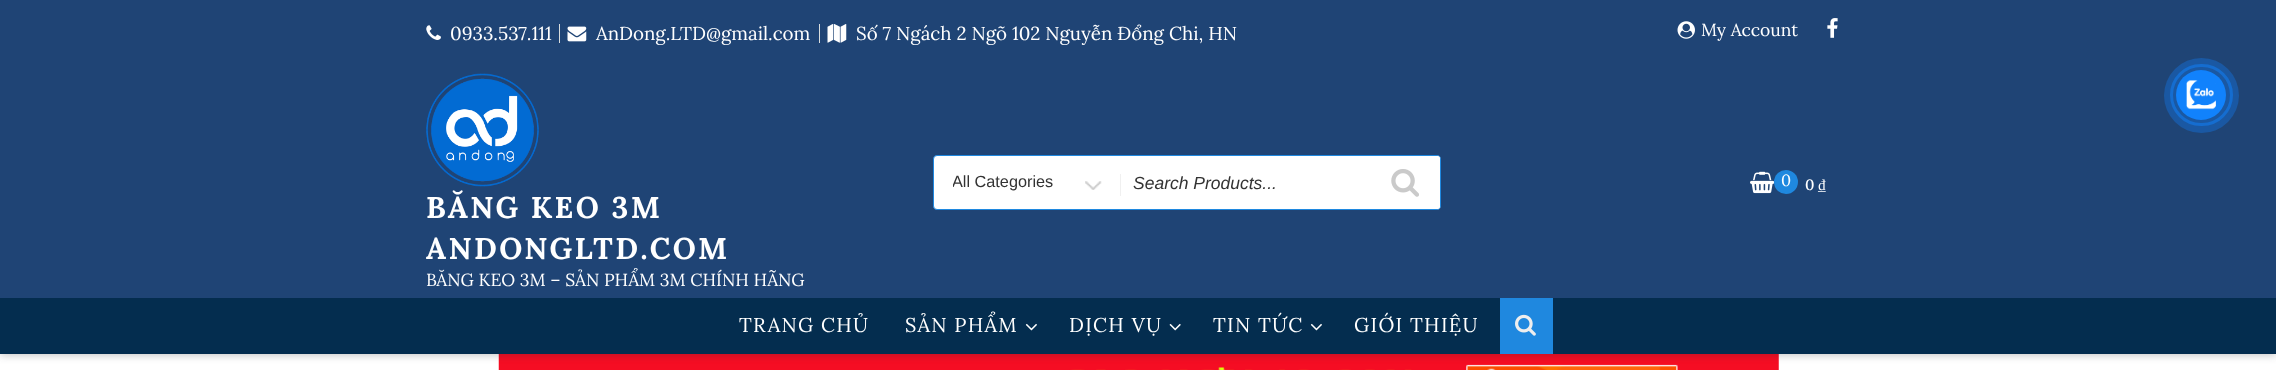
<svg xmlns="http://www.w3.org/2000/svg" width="2276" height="370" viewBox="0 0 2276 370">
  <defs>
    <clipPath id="clip1"><rect x="953" y="156" width="125" height="53"/></clipPath>
  </defs>
  <rect width="100%" height="100%" fill="rgb(255,255,255)"/>
  <image x="498" y="354" width="1281" height="16" href="pic14.png"/>
  <rect x="0" y="1" width="2276" height="354" fill="rgba(32,33,36,0.28)" filter="blur(4px)"/>
  <rect x="0" y="0" width="2276" height="298" fill="rgb(31,68,117)"/>
  <image x="426" y="25" width="15" height="15" href="pic1.png"/>
  <text x="450" y="40" font-family="Lora" font-size="18.75" fill="rgb(255,255,255)">0933.537.111</text>
  <rect x="559" y="24" width="1" height="19" fill="rgb(217,221,221)"/>
  <image x="567" y="26" width="20" height="16" href="pic2.png"/>
  <text x="596" y="40" font-family="Lora" font-size="18.75" fill="rgb(255,255,255)">AnDong.LTD@gmail.com</text>
  <rect x="819" y="24" width="1" height="19" fill="rgb(217,221,221)"/>
  <image x="827" y="24" width="20" height="19" href="pic3.png"/>
  <text x="856" y="40" font-family="Lora" font-size="18.75" fill="rgb(255,255,255)">Số 7 Ngách 2 Ngõ 102 Nguyễn Đổng Chi, HN</text>
  <image x="1677" y="21" width="18" height="18" href="pic4.png"/>
  <text x="1701" y="36" font-family="Lora" font-size="17.5" fill="rgb(255,255,255)">My Account</text>
  <image x="1827" y="18" width="11" height="20" href="pic5.png"/>
  <rect x="933.5" y="155.5" width="507" height="54" rx="3.5" fill="rgb(255,255,255)" stroke="rgb(31,136,223)"/>
  <image x="1085" y="181" width="17" height="9" href="pic6.png"/>
  <g clip-path="url(#clip1)">
    <text x="952" y="187" font-family="Liberation Sans" font-size="16.25" fill="rgb(51,51,51)">All Categories</text>
  </g>
  <rect x="1120" y="174" width="1" height="22" fill="rgb(240,240,240)"/>
  <text x="1133" y="189" font-family="Liberation Sans" font-size="17.5" font-style="italic" fill="rgb(51,51,51)">Search Products...</text>
  <path d="M1370 156H1437.5C1439 156 1440 157 1440 158.5V206.5C1440 208 1439 209 1437.5 209H1370Z" fill="rgb(255,255,255)"/>
  <image x="1391" y="169" width="28" height="28" href="pic7.png"/>
  <image x="1750" y="171" width="25" height="23" href="pic8.png"/>
  <circle cx="1786" cy="182" r="12" fill="rgb(31,136,223)"/>
  <text x="1781" y="186" font-family="Lora" font-size="16.25" fill="rgb(255,255,255)">0</text>
  <text x="1805" y="190" font-family="Lora" font-size="15" font-weight="500" fill="rgb(255,255,255)">0</text>
  <text x="1818" y="190" font-family="Liberation Serif" font-size="15" fill="rgb(255,255,255)">₫</text>
  <image x="426" y="73" width="113" height="114" href="pic9.png"/>
  <g font-family="Lora" font-size="30" font-weight="bold" letter-spacing="2.4" fill="rgb(255,255,255)">
    <text>
      <tspan x="426" y="218">BĂNG KEO 3M</tspan>
      <tspan x="426" y="259">ANDONGLTD.COM</tspan>
    </text>
  </g>
  <text x="426" y="286" font-family="Lora" font-size="17.5" fill="rgb(255,255,255)">BĂNG KEO 3M – SẢN PHẨM 3M CHÍNH HÃNG</text>
  <rect x="0" y="298" width="2276" height="56" fill="rgb(4,45,79)"/>
  <g font-family="Lora" font-size="20" letter-spacing="1.25" fill="rgb(255,255,255)">
    <text x="739" y="332">TRANG CHỦ</text>
    <text x="905" y="332">SẢN PHẨM</text>
  </g>
  <image x="1025" y="323" width="12" height="8" href="pic10.png"/>
  <text x="1069" y="332" font-family="Lora" font-size="20" letter-spacing="1.25" fill="rgb(255,255,255)">DỊCH VỤ</text>
  <image x="1169" y="323" width="12" height="8" href="pic11.png"/>
  <text x="1213" y="332" font-family="Lora" font-size="20" letter-spacing="1.25" fill="rgb(255,255,255)">TIN TỨC</text>
  <image x="1310" y="323" width="12" height="8" href="pic10.png"/>
  <text x="1354" y="332" font-family="Lora" font-size="20" letter-spacing="1.25" fill="rgb(255,255,255)">GIỚI THIỆU</text>
  <rect x="1500" y="298" width="53" height="56" fill="rgb(31,136,223)"/>
  <image x="1515" y="314" width="21" height="22" href="pic12.png"/>
  <rect x="2171.5" y="65.5" width="60" height="59" rx="29.5" fill="none" stroke="rgb(24,99,185)" stroke-width="3"/>
  <circle cx="2201.5" cy="95.5" r="37.5" fill="rgba(17,130,252,0.34)"/>
  <circle cx="2201" cy="95" r="25" fill="rgb(17,130,252)"/>
  <image x="2186" y="80" width="30" height="30" href="pic13.png"/>
</svg>
